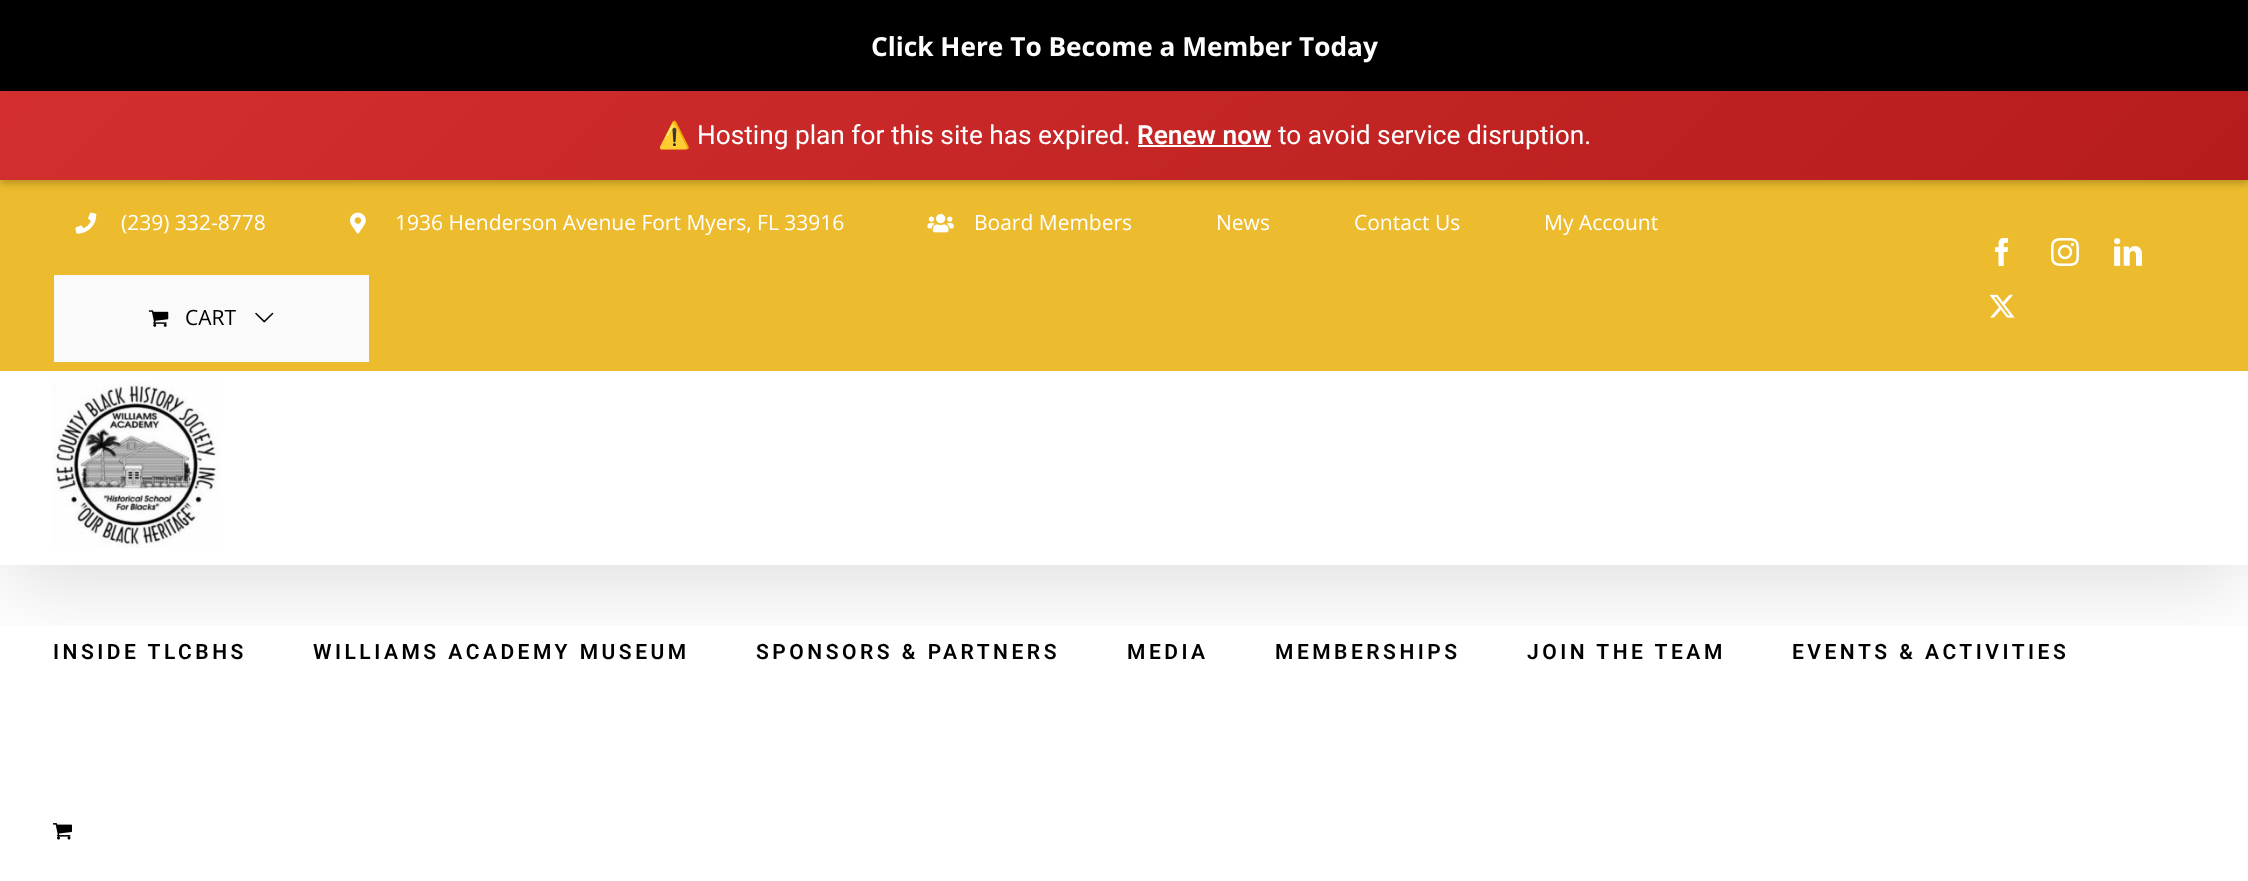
<svg xmlns="http://www.w3.org/2000/svg" width="2248" height="881" viewBox="0 0 2248 881">
  <defs>
    <clipPath id="clip1"><rect x="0" y="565" width="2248" height="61"/></clipPath>
    <linearGradient id="g1" gradientUnits="userSpaceOnUse" x1="540" y1="-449" x2="1709" y2="720"><stop offset="0" stop-color="rgb(211,47,47)"/><stop offset="1" stop-color="rgb(183,28,28)"/></linearGradient>
  </defs>
  <rect width="100%" height="100%" fill="rgb(255,255,255)"/>
  <g clip-path="url(#clip1)">
    <rect x="4" y="201" width="2241" height="378" fill="rgba(0,0,0,0.14)" filter="blur(44px)"/>
  </g>
  <rect x="0" y="0" width="2248" height="91" fill="rgb(0,0,0)"/>
  <text x="871" y="56" font-family="Open Sans" font-size="26.25" font-weight="bold" fill="rgb(255,255,255)">Click Here To Become a Member Today</text>
  <rect x="0" y="180" width="2248" height="191" fill="rgb(236,188,46)"/>
  <rect x="0" y="95" width="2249" height="89" fill="rgba(0,0,0,0.2)" filter="blur(3.5px)"/>
  <rect x="0" y="91" width="2248" height="89" fill="url(#g1)"/>
  <text x="658" y="144" font-family="Noto Color Emoji" font-size="26.25" fill="rgb(255,255,255)">⚠️</text>
  <text x="697" y="144" font-family="Roboto" font-size="26.25" fill="rgb(255,255,255)">Hosting plan for this site has expired.</text>
  <text x="1137" y="144" font-family="Roboto" font-size="26.25" font-weight="600" fill="rgb(255,255,255)">Renew now</text>
  <rect x="1138" y="145" width="133" height="2" fill="rgb(255,255,255)"/>
  <text x="1278" y="144" font-family="Roboto" font-size="26.25" fill="rgb(255,255,255)">to avoid service disruption.</text>
  <image x="75" y="212" width="22" height="22" href="pic1.png"/>
  <text x="121" y="230" font-family="Open Sans" font-size="21" fill="rgb(255,255,255)">(239) 332-8778</text>
  <image x="350" y="212" width="16" height="22" href="pic2.png"/>
  <text x="395" y="230" font-family="Open Sans" font-size="21" fill="rgb(255,255,255)">1936 Henderson Avenue Fort Myers, FL 33916</text>
  <image x="927" y="213" width="27" height="20" href="pic3.png"/>
  <g font-family="Open Sans" font-size="21" fill="rgb(255,255,255)">
    <text x="974" y="230">Board Members</text>
    <text x="1216" y="230">News</text>
    <text x="1354" y="230">Contact Us</text>
    <text x="1544" y="230">My Account</text>
  </g>
  <rect x="54" y="275" width="315" height="87" fill="rgb(250,250,250)"/>
  <image x="148" y="310" width="21" height="17" href="pic4.png"/>
  <text x="185" y="325" font-family="Open Sans" font-size="21" fill="rgb(0,0,0)">CART</text>
  <image x="255" y="312" width="19" height="11" href="pic5.png"/>
  <image x="1995" y="238" width="14" height="28" href="pic6.png"/>
  <image x="2051" y="238" width="28" height="28" href="pic7.png"/>
  <image x="2114" y="238" width="28" height="28" href="pic8.png"/>
  <image x="1989" y="294" width="26" height="24" href="pic9.png"/>
  <image x="52" y="381" width="169" height="167" href="pic10.png"/>
  <g font-family="Roboto" font-size="21" font-weight="600" letter-spacing="3.5" fill="rgb(0,0,0)">
    <text x="53" y="659">INSIDE TLCBHS</text>
    <text x="313" y="659">WILLIAMS ACADEMY MUSEUM</text>
    <text x="756" y="659">SPONSORS &amp; PARTNERS</text>
    <text x="1127" y="659">MEDIA</text>
    <text x="1275" y="659">MEMBERSHIPS</text>
    <text x="1527" y="659">JOIN THE TEAM</text>
    <text x="1792" y="659">EVENTS &amp; ACTIVITIES</text>
  </g>
  <image x="53" y="823" width="19" height="17" href="pic11.png"/>
</svg>
